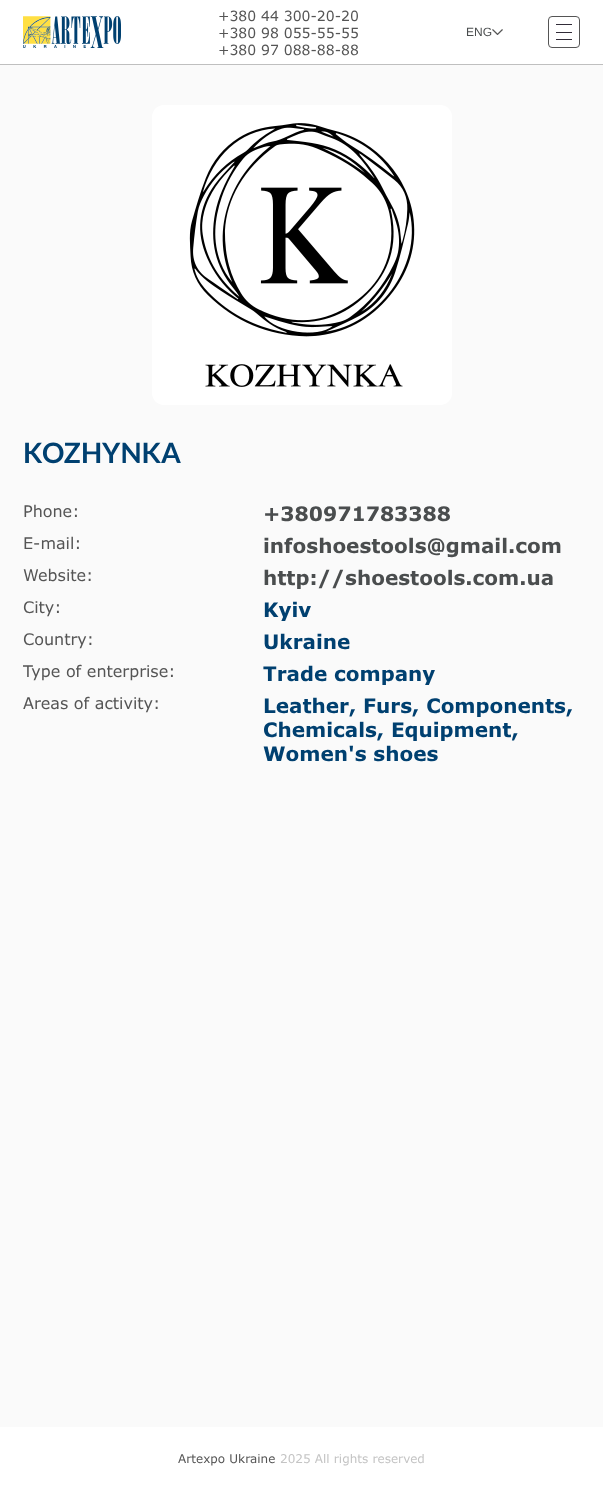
<svg xmlns="http://www.w3.org/2000/svg" width="603" height="1500" viewBox="0 0 603 1500">
  <rect width="100%" height="100%" fill="rgb(250,250,250)"/>
  <rect x="0" y="0" width="603" height="64" fill="rgb(255,255,255)"/>
  <rect x="0" y="64" width="603" height="1" fill="rgb(191,191,191)"/>
  <image x="23" y="16" width="98" height="32" href="pic1.png"/>
  <g font-family="Verdana" font-size="14" fill="rgb(85,85,85)">
    <text>
      <tspan x="218" y="21">+380 44 300-20-20</tspan>
      <tspan x="218" y="38">+380 98 055-55-55</tspan>
      <tspan x="218" y="55">+380 97 088-88-88</tspan>
    </text>
  </g>
  <text x="466" y="36" font-family="Liberation Sans" font-size="12" fill="rgb(74,77,78)">ENG</text>
  <image x="492" y="29" width="11" height="6" href="pic2.png"/>
  <rect x="548.5" y="16.5" width="31" height="31" rx="3.5" fill="none" stroke="rgb(85,85,85)"/>
  <rect x="556" y="24" width="16" height="1" fill="rgb(49,44,56)"/>
  <rect x="556" y="39" width="16" height="1" fill="rgb(49,44,56)"/>
  <rect x="556" y="32" width="16" height="1" fill="rgb(49,44,56)"/>
  <image x="152" y="105" width="300" height="300" href="pic3.png"/>
  <text x="23" y="463" font-family="Lato" font-size="28" font-weight="bold" fill="rgb(0,64,112)">KOZHYNKA</text>
  <text x="23" y="517" font-family="Verdana" font-size="16" fill="rgb(85,85,85)">Phone:</text>
  <text x="263" y="521" font-family="Verdana" font-size="20" font-weight="bold" fill="rgb(74,77,78)">+380971783388</text>
  <text x="23" y="549" font-family="Verdana" font-size="16" fill="rgb(85,85,85)">E-mail:</text>
  <text x="263" y="553" font-family="Verdana" font-size="20" font-weight="bold" fill="rgb(74,77,78)">infoshoestools@gmail.com</text>
  <text x="23" y="581" font-family="Verdana" font-size="16" fill="rgb(85,85,85)">Website:</text>
  <text x="263" y="585" font-family="Verdana" font-size="20" font-weight="bold" fill="rgb(74,77,78)">http://shoestools.com.ua</text>
  <text x="23" y="613" font-family="Verdana" font-size="16" fill="rgb(85,85,85)">City:</text>
  <text x="263" y="617" font-family="Verdana" font-size="20" font-weight="bold" fill="rgb(0,64,112)">Kyiv</text>
  <text x="23" y="645" font-family="Verdana" font-size="16" fill="rgb(85,85,85)">Country:</text>
  <text x="263" y="649" font-family="Verdana" font-size="20" font-weight="bold" fill="rgb(0,64,112)">Ukraine</text>
  <text x="23" y="677" font-family="Verdana" font-size="16" fill="rgb(85,85,85)">Type of enterprise:</text>
  <text x="263" y="681" font-family="Verdana" font-size="20" font-weight="bold" fill="rgb(0,64,112)">Trade company</text>
  <text x="23" y="709" font-family="Verdana" font-size="16" fill="rgb(85,85,85)">Areas of activity:</text>
  <g font-family="Verdana" font-size="20" font-weight="bold" fill="rgb(0,64,112)">
    <text>
      <tspan x="263" y="713">Leather, Furs, Components,</tspan>
      <tspan x="263" y="737">Chemicals, Equipment,</tspan>
      <tspan x="263" y="761">Women's shoes</tspan>
    </text>
  </g>
  <rect x="0" y="1427" width="603" height="73" fill="rgb(255,255,255)"/>
  <text x="178" y="1463" font-family="Verdana" font-size="12" fill="rgb(85,85,85)">Artexpo Ukraine</text>
  <text x="280" y="1463" font-family="Verdana" font-size="12" fill="rgb(196,196,196)">2025 All rights reserved</text>
</svg>
